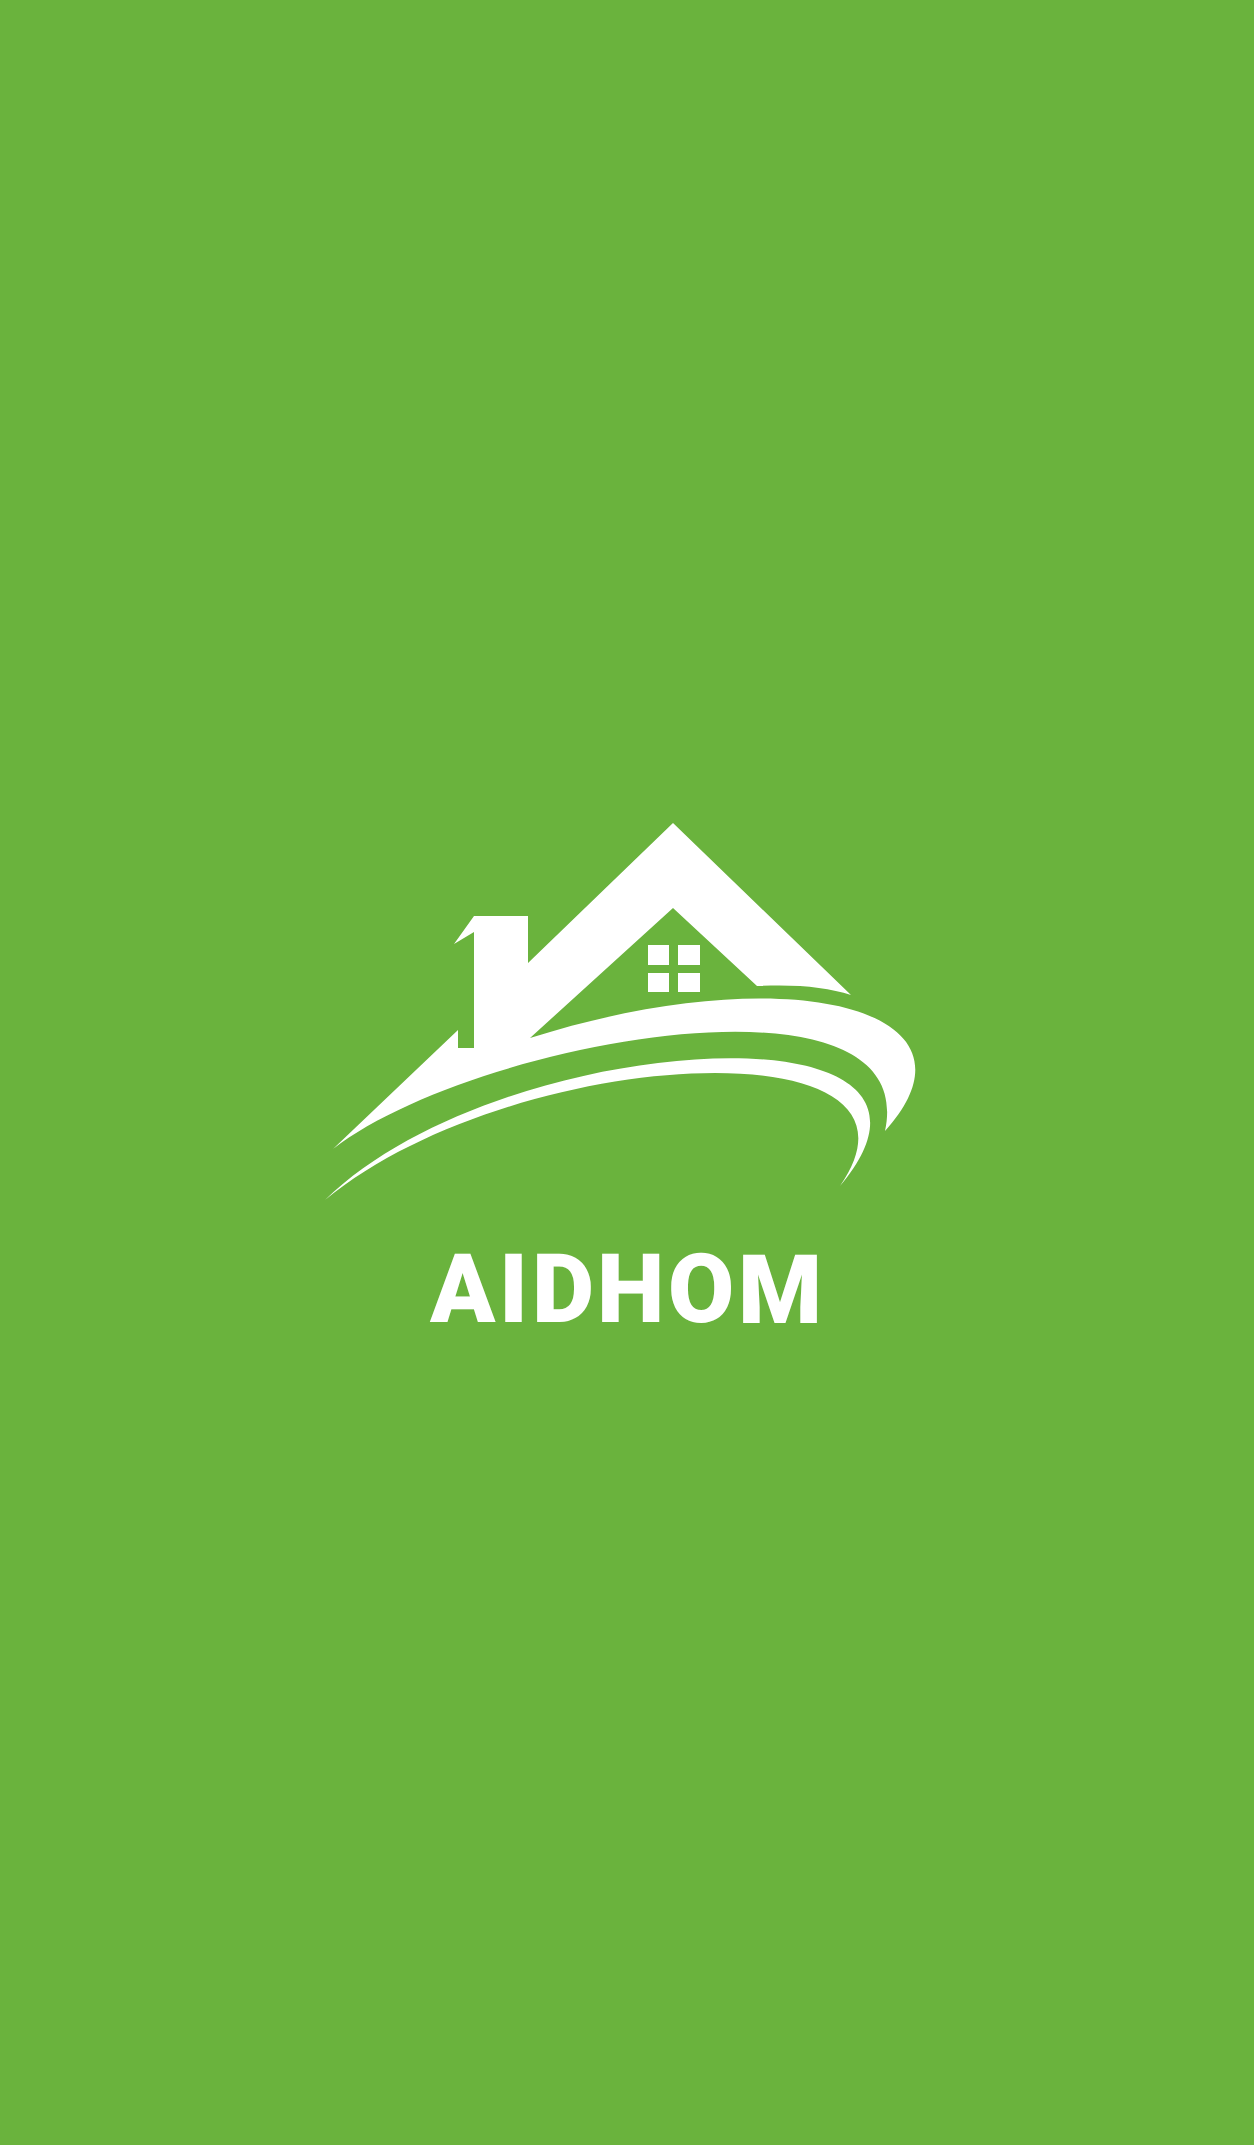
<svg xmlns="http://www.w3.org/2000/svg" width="1254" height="2145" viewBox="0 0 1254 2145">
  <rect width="100%" height="100%" fill="rgb(106,179,61)"/>
  <path d="M333 1149C471 1041 922 959 885 1131C995 1009 789 956 530 1038L673 908V823L528 963V916H474L454 944L474 932V1048H458V1030ZM673 908L757 986C796 984 827 987 851 995L673 823ZM648 945V965H669V945ZM678 945V965H700V945ZM648 973V992H669V973ZM678 973V992H700V973ZM325 1200C514 1044 953 1023 840 1186C928 1081 810 1044 658 1063C540 1077 402 1125 325 1200Z" fill="rgb(255,255,255)" fill-rule="evenodd"/>
  <g font-family="Roboto" font-size="96" font-weight="900" letter-spacing="2" fill="rgb(255,255,255)">
    <text x="430" y="1322">A</text>
    <text x="499" y="1322">I</text>
    <text x="532" y="1322">D</text>
    <text x="597" y="1322">H</text>
    <text x="668" y="1322">O</text>
    <text x="738" y="1323">M</text>
  </g>
</svg>
